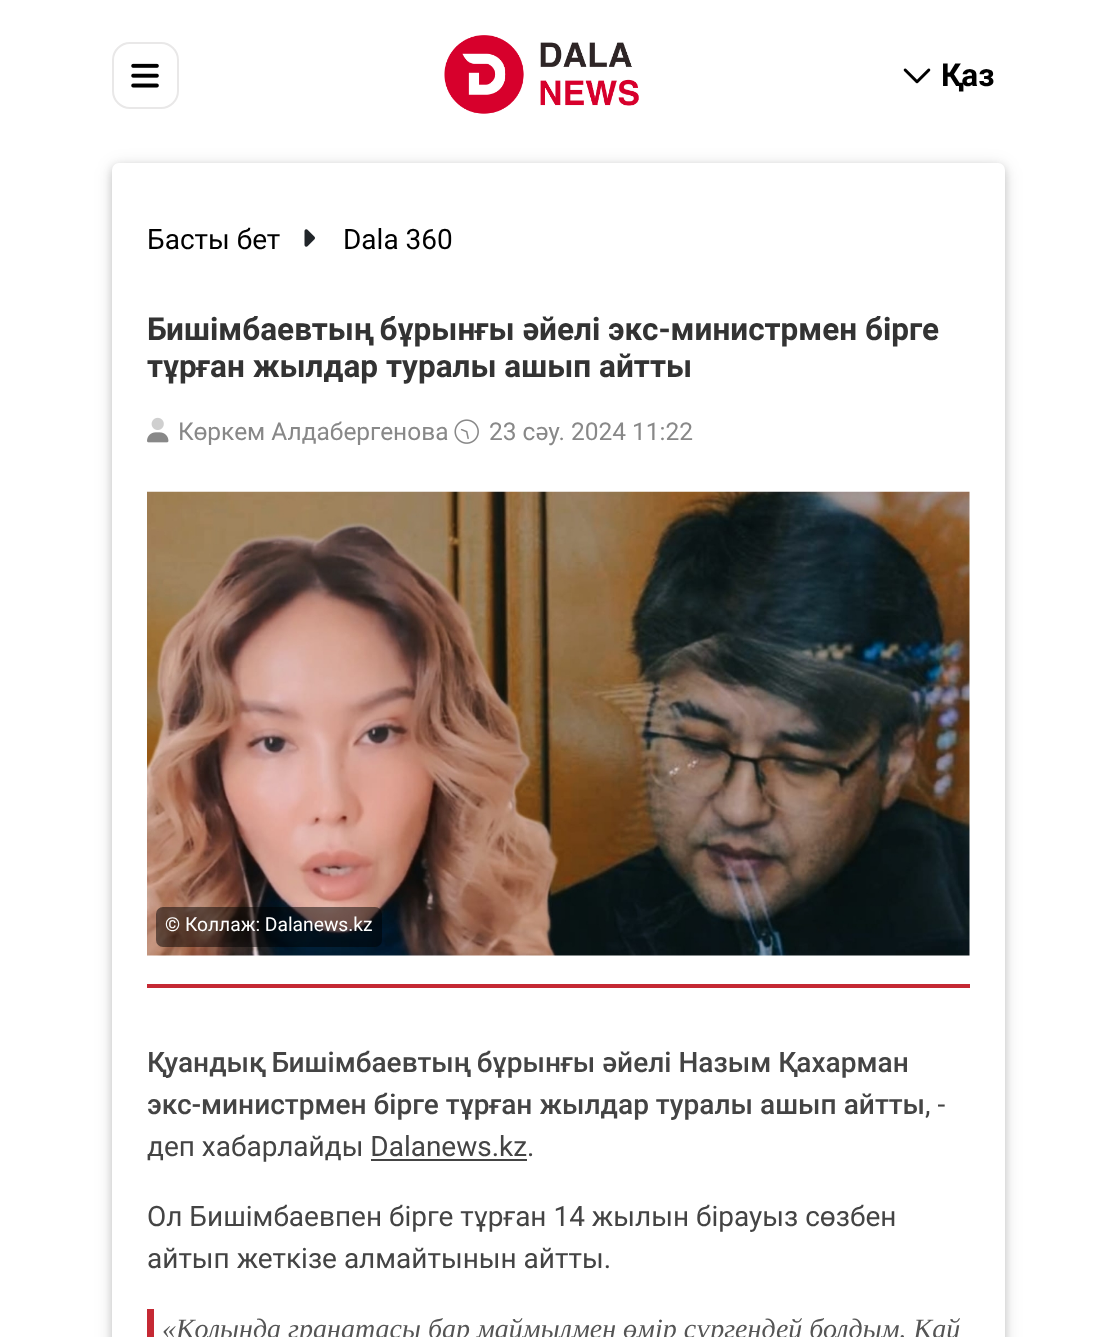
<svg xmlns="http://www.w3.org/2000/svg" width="1116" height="1337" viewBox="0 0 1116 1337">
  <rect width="100%" height="100%" fill="rgb(255,255,255)"/>
  <rect x="113" y="43" width="65" height="65" rx="17" fill="none" stroke="rgb(233,232,232)" stroke-width="2"/>
  <image x="131" y="63" width="28" height="25" href="pic1.png"/>
  <image x="444" y="35" width="195" height="79" href="pic2.png"/>
  <image x="903" y="68" width="28" height="16" href="pic3.png"/>
  <text x="941" y="86" font-family="Roboto" font-size="31.5" font-weight="bold" fill="rgb(0,0,0)">Қаз</text>
  <rect x="112" y="166" width="893" height="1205" rx="7" fill="rgba(0,0,0,0.12)" filter="blur(9px)"/>
  <rect x="112" y="166" width="893" height="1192" rx="7" fill="rgba(0,0,0,0.16)" filter="blur(4.5px)"/>
  <rect x="112" y="163" width="893" height="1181" rx="7" fill="rgb(255,255,255)"/>
  <text x="147" y="249" font-family="Roboto" font-size="28" fill="rgb(0,0,0)">Басты бет</text>
  <image x="304" y="229" width="11" height="18" href="pic4.png"/>
  <text x="343" y="249" font-family="Roboto" font-size="28" fill="rgb(0,0,0)">Dala 360</text>
  <g font-family="Roboto" font-size="31.5" font-weight="bold" fill="rgb(51,51,51)">
    <text>
      <tspan x="147" y="340">Бишімбаевтың бұрынғы әйелі экс-министрмен бірге</tspan>
      <tspan x="147" y="377">тұрған жылдар туралы ашып айтты</tspan>
    </text>
  </g>
  <image x="151" y="417" width="13" height="13" href="pic5.png"/>
  <image x="147" y="432" width="22" height="11" href="pic6.png"/>
  <text x="178" y="440" font-family="Roboto" font-size="24.5" fill="rgb(136,136,136)">Көркем Алдабергенова</text>
  <image x="454" y="419" width="25" height="25" href="pic7.png"/>
  <text x="489" y="440" font-family="Roboto" font-size="24.5" fill="rgb(136,136,136)">23 сәу. 2024 11:22</text>
  <image x="147" y="491" width="823" height="465" href="pic8.png"/>
  <rect x="156" y="907" width="226" height="40" rx="7" fill="rgba(0,0,0,0.5)"/>
  <g font-family="Roboto" font-size="19.25" fill="rgb(255,255,255)">
    <text x="165" y="931">©</text>
    <text x="185" y="931">Коллаж: Dalanews.kz</text>
  </g>
  <rect x="147" y="984" width="823" height="4" fill="rgb(197,41,52)"/>
  <g font-family="Roboto" font-size="28" font-weight="500" fill="rgb(68,68,68)">
    <text>
      <tspan x="147" y="1072">Қуандық Бишімбаевтың бұрынғы әйелі Назым Қахарман</tspan>
      <tspan x="147" y="1114">экс-министрмен бірге тұрған жылдар туралы ашып айтты</tspan>
    </text>
  </g>
  <g font-family="Roboto" font-size="28" fill="rgb(68,68,68)">
    <text x="925" y="1114">, -</text>
    <text x="147" y="1156">деп хабарлайды Dalanews.kz.</text>
  </g>
  <rect x="371" y="1159" width="156" height="2" fill="rgb(68,68,68)"/>
  <g font-family="Roboto" font-size="28" fill="rgb(68,68,68)">
    <text>
      <tspan x="147" y="1226">Ол Бишімбаевпен бірге тұрған 14 жылын бірауыз сөзбен</tspan>
      <tspan x="147" y="1268">айтып жеткізе алмайтынын айтты.</tspan>
    </text>
  </g>
  <rect x="147" y="1309" width="7" height="28" fill="rgb(197,41,52)"/>
  <text x="162" y="1338" font-family="Liberation Serif" font-size="28" font-style="italic" fill="rgb(85,85,85)">«Қолында гранатасы бар маймылмен өмір сүргендей болдым. Қай</text>
</svg>
